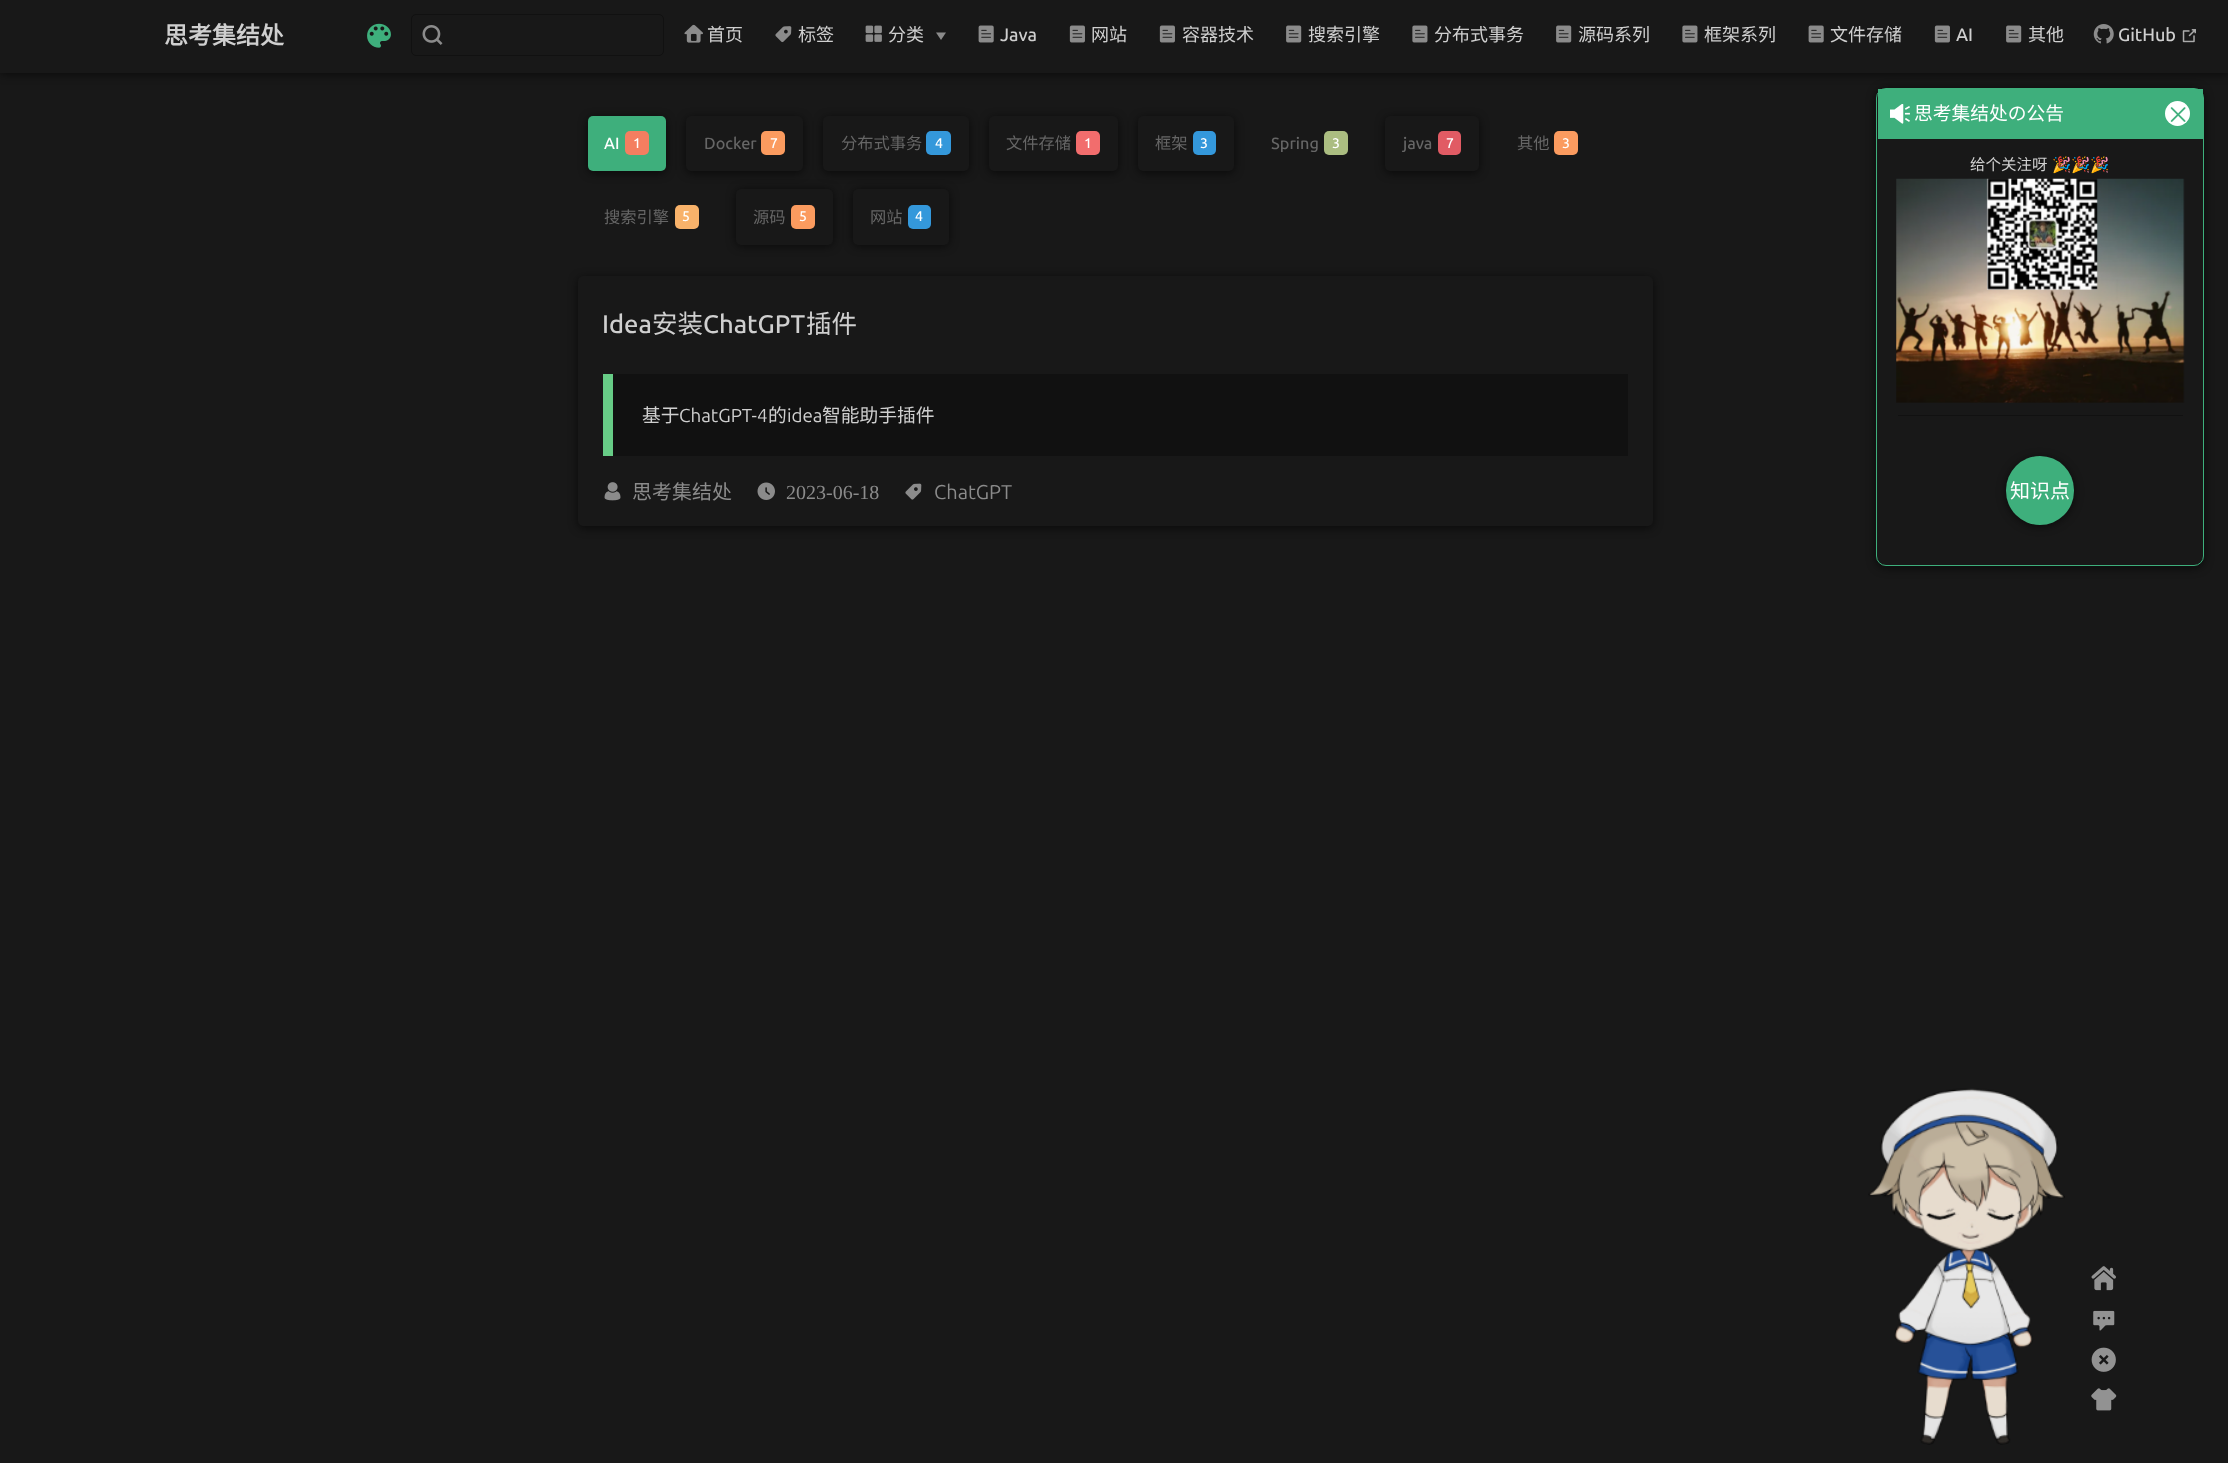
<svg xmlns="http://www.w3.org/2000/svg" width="2228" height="1463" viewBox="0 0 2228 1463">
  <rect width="100%" height="100%" fill="rgb(24,24,24)"/>
  <rect x="1876" y="89" width="328" height="479" rx="10" fill="rgba(0,0,0,0.6)" filter="blur(5px)"/>
  <rect x="1876.5" y="88.5" width="327" height="477" rx="9.5" fill="rgb(24,24,24)" stroke="rgb(62,175,124)"/>
  <rect x="1878" y="89" width="325" height="50" fill="rgb(62,175,124)"/>
  <rect x="0" y="1" width="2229" height="73" fill="rgba(0,0,0,0.6)" filter="blur(5px)"/>
  <rect x="0" y="0" width="2228" height="73" fill="rgb(24,24,24)"/>
  <text x="164" y="44" font-family="Noto Sans CJK SC" font-size="24" font-weight="bold" fill="rgb(207,207,207)">思考集结处</text>
  <image x="367" y="23" width="24" height="25" href="pic1.png"/>
  <rect x="411.5" y="14.5" width="252" height="41" rx="4.5" fill="none" stroke="rgb(17,17,17)"/>
  <image x="422" y="25" width="21" height="20" href="pic2.png"/>
  <image x="684" y="24" width="19" height="19" href="pic3.png"/>
  <text x="707" y="41" font-family="Noto Sans CJK SC" font-size="18" fill="rgb(207,207,207)">首页</text>
  <image x="775" y="26" width="17" height="17" href="pic4.png"/>
  <text x="798" y="41" font-family="Noto Sans CJK SC" font-size="18" fill="rgb(207,207,207)">标签</text>
  <image x="865" y="25" width="17" height="17" href="pic5.png"/>
  <text x="888" y="41" font-family="Noto Sans CJK SC" font-size="18" fill="rgb(207,207,207)">分类</text>
  <path d="M936 32.5H946L941 40Z" fill="rgb(139,139,139)"/>
  <image x="978" y="25" width="16" height="18" href="pic6.png"/>
  <text x="1000" y="41" font-family="Ubuntu" font-size="18" font-weight="500" fill="rgb(207,207,207)">Java</text>
  <image x="1069" y="25" width="16" height="18" href="pic7.png"/>
  <text x="1091" y="41" font-family="Noto Sans CJK SC" font-size="18" fill="rgb(207,207,207)">网站</text>
  <image x="1159" y="25" width="16" height="18" href="pic7.png"/>
  <text x="1182" y="41" font-family="Noto Sans CJK SC" font-size="18" fill="rgb(207,207,207)">容器技术</text>
  <image x="1286" y="25" width="16" height="18" href="pic8.png"/>
  <text x="1308" y="41" font-family="Noto Sans CJK SC" font-size="18" fill="rgb(207,207,207)">搜索引擎</text>
  <image x="1412" y="25" width="16" height="18" href="pic9.png"/>
  <text x="1434" y="41" font-family="Noto Sans CJK SC" font-size="18" fill="rgb(207,207,207)">分布式事务</text>
  <image x="1556" y="25" width="16" height="18" href="pic8.png"/>
  <text x="1578" y="41" font-family="Noto Sans CJK SC" font-size="18" fill="rgb(207,207,207)">源码系列</text>
  <image x="1682" y="25" width="16" height="18" href="pic9.png"/>
  <text x="1704" y="41" font-family="Noto Sans CJK SC" font-size="18" fill="rgb(207,207,207)">框架系列</text>
  <image x="1808" y="25" width="16" height="18" href="pic6.png"/>
  <text x="1830" y="41" font-family="Noto Sans CJK SC" font-size="18" fill="rgb(207,207,207)">文件存储</text>
  <image x="1934" y="25" width="16" height="18" href="pic7.png"/>
  <text x="1956" y="41" font-family="Ubuntu" font-size="18" font-weight="500" fill="rgb(207,207,207)">AI</text>
  <image x="2006" y="25" width="16" height="18" href="pic8.png"/>
  <text x="2028" y="41" font-family="Noto Sans CJK SC" font-size="18" fill="rgb(207,207,207)">其他</text>
  <image x="2093" y="24" width="21" height="20" href="pic10.png"/>
  <text x="2118" y="41" font-family="Ubuntu" font-size="18" font-weight="500" fill="rgb(207,207,207)">GitHub</text>
  <image x="2182" y="29" width="14" height="14" href="pic11.png"/>
  <rect x="588" y="118" width="78" height="55" rx="5" fill="rgba(0,0,0,0.6)" filter="blur(5px)"/>
  <rect x="588" y="116" width="78" height="55" rx="5" fill="rgb(62,175,124)"/>
  <text x="604" y="149" font-family="Ubuntu" font-size="16.25" font-weight="500" fill="rgb(255,255,255)">AI</text>
  <rect x="625" y="131" width="24" height="24" rx="5" fill="rgb(244,126,96)"/>
  <text x="633" y="148" font-family="Ubuntu" font-size="14" font-weight="500" fill="rgb(255,255,255)">1</text>
  <rect x="686" y="118" width="117" height="55" rx="5" fill="rgba(0,0,0,0.6)" filter="blur(5px)"/>
  <rect x="686" y="116" width="117" height="55" rx="5" fill="rgb(24,24,24)"/>
  <text x="704" y="149" font-family="Ubuntu" font-size="16.25" font-weight="500" fill="rgb(102,102,102)">Docker</text>
  <rect x="761" y="131" width="24" height="24" rx="5" fill="rgb(251,155,95)"/>
  <text x="770" y="148" font-family="Ubuntu" font-size="14" font-weight="500" fill="rgb(255,255,255)">7</text>
  <rect x="823" y="118" width="146" height="55" rx="5" fill="rgba(0,0,0,0.6)" filter="blur(5px)"/>
  <rect x="823" y="116" width="146" height="55" rx="5" fill="rgb(24,24,24)"/>
  <text x="841" y="149" font-family="Noto Sans CJK SC" font-size="16.25" fill="rgb(102,102,102)">分布式事务</text>
  <rect x="926" y="131" width="25" height="24" rx="5" fill="rgb(52,152,219)"/>
  <text x="935" y="148" font-family="Ubuntu" font-size="14" font-weight="500" fill="rgb(255,255,255)">4</text>
  <rect x="989" y="118" width="129" height="55" rx="5" fill="rgba(0,0,0,0.6)" filter="blur(5px)"/>
  <rect x="989" y="116" width="129" height="55" rx="5" fill="rgb(24,24,24)"/>
  <text x="1006" y="149" font-family="Noto Sans CJK SC" font-size="16.25" fill="rgb(102,102,102)">文件存储</text>
  <rect x="1076" y="131" width="24" height="24" rx="5" fill="rgb(242,109,109)"/>
  <text x="1084" y="148" font-family="Ubuntu" font-size="14" font-weight="500" fill="rgb(255,255,255)">1</text>
  <rect x="1138" y="118" width="96" height="55" rx="5" fill="rgba(0,0,0,0.6)" filter="blur(5px)"/>
  <rect x="1138" y="116" width="96" height="55" rx="5" fill="rgb(24,24,24)"/>
  <text x="1155" y="149" font-family="Noto Sans CJK SC" font-size="16.25" fill="rgb(102,102,102)">框架</text>
  <rect x="1193" y="131" width="23" height="24" rx="5" fill="rgb(52,152,219)"/>
  <text x="1200" y="148" font-family="Ubuntu" font-size="14" font-weight="500" fill="rgb(255,255,255)">3</text>
  <text x="1271" y="149" font-family="Ubuntu" font-size="16.25" font-weight="500" fill="rgb(102,102,102)">Spring</text>
  <rect x="1324" y="131" width="24" height="24" rx="5" fill="rgb(171,189,129)"/>
  <text x="1332" y="148" font-family="Ubuntu" font-size="14" font-weight="500" fill="rgb(255,255,255)">3</text>
  <rect x="1385" y="118" width="94" height="55" rx="5" fill="rgba(0,0,0,0.6)" filter="blur(5px)"/>
  <rect x="1385" y="116" width="94" height="55" rx="5" fill="rgb(24,24,24)"/>
  <text x="1403" y="149" font-family="Ubuntu" font-size="16.25" font-weight="500" fill="rgb(102,102,102)">java</text>
  <rect x="1438" y="131" width="23" height="24" rx="5" fill="rgb(225,91,100)"/>
  <text x="1446" y="148" font-family="Ubuntu" font-size="14" font-weight="500" fill="rgb(255,255,255)">7</text>
  <text x="1517" y="149" font-family="Noto Sans CJK SC" font-size="16.25" fill="rgb(102,102,102)">其他</text>
  <rect x="1554" y="131" width="24" height="24" rx="5" fill="rgb(251,155,95)"/>
  <text x="1562" y="148" font-family="Ubuntu" font-size="14" font-weight="500" fill="rgb(255,255,255)">3</text>
  <text x="604" y="223" font-family="Noto Sans CJK SC" font-size="16.25" fill="rgb(102,102,102)">搜索引擎</text>
  <rect x="675" y="205" width="24" height="24" rx="5" fill="rgb(248,178,106)"/>
  <text x="682" y="221" font-family="Ubuntu" font-size="14" font-weight="500" fill="rgb(255,255,255)">5</text>
  <rect x="736" y="190" width="97" height="56" rx="5" fill="rgba(0,0,0,0.6)" filter="blur(5px)"/>
  <rect x="736" y="189" width="97" height="56" rx="5" fill="rgb(24,24,24)"/>
  <text x="753" y="223" font-family="Noto Sans CJK SC" font-size="16.25" fill="rgb(102,102,102)">源码</text>
  <rect x="791" y="205" width="24" height="24" rx="5" fill="rgb(251,155,95)"/>
  <text x="799" y="221" font-family="Ubuntu" font-size="14" font-weight="500" fill="rgb(255,255,255)">5</text>
  <rect x="853" y="190" width="96" height="56" rx="5" fill="rgba(0,0,0,0.6)" filter="blur(5px)"/>
  <rect x="853" y="189" width="96" height="56" rx="5" fill="rgb(24,24,24)"/>
  <text x="870" y="223" font-family="Noto Sans CJK SC" font-size="16.25" fill="rgb(102,102,102)">网站</text>
  <rect x="908" y="205" width="23" height="24" rx="5" fill="rgb(52,152,219)"/>
  <text x="915" y="221" font-family="Ubuntu" font-size="14" font-weight="500" fill="rgb(255,255,255)">4</text>
  <rect x="578" y="278" width="1075" height="250" rx="5" fill="rgba(0,0,0,0.6)" filter="blur(5px)"/>
  <rect x="578" y="276" width="1075" height="250" rx="5" fill="rgb(24,24,24)"/>
  <text x="602" y="333" font-family="Ubuntu" font-size="25.5" font-weight="500" fill="rgb(207,207,207)">Idea</text>
  <text x="652" y="333" font-family="Noto Sans CJK SC" font-size="25.5" fill="rgb(207,207,207)">安装</text>
  <text x="703" y="333" font-family="Ubuntu" font-size="25.5" font-weight="500" fill="rgb(207,207,207)">ChatGPT</text>
  <text x="806" y="333" font-family="Noto Sans CJK SC" font-size="25.5" fill="rgb(207,207,207)">插件</text>
  <rect x="613" y="374" width="1015" height="82" fill="rgb(17,17,17)"/>
  <rect x="603" y="374" width="10" height="82" fill="rgb(103,204,134)"/>
  <text x="642" y="422" font-family="Noto Sans CJK SC" font-size="18.75" fill="rgb(207,207,207)">基于</text>
  <text x="679" y="422" font-family="Ubuntu" font-size="18.75" fill="rgb(207,207,207)">ChatGPT-4</text>
  <text x="768" y="422" font-family="Noto Sans CJK SC" font-size="18.75" fill="rgb(207,207,207)">的</text>
  <text x="787" y="422" font-family="Ubuntu" font-size="18.75" fill="rgb(207,207,207)">idea</text>
  <text x="822" y="422" font-family="Noto Sans CJK SC" font-size="18.75" fill="rgb(207,207,207)">智能助手插件</text>
  <image x="604" y="482" width="17" height="19" href="pic12.png"/>
  <text x="632" y="499" font-family="Noto Sans CJK SC" font-size="20" fill="rgb(139,139,139)">思考集结处</text>
  <image x="757" y="482" width="18" height="18" href="pic13.png"/>
  <text x="786" y="499" font-family="Liberation Serif" font-size="20" fill="rgb(139,139,139)">2023-06-18</text>
  <image x="905" y="483" width="17" height="17" href="pic14.png"/>
  <text x="934" y="499" font-family="Ubuntu" font-size="20" fill="rgb(139,139,139)">ChatGPT</text>
  <image x="1890" y="104" width="20" height="20" href="pic15.png"/>
  <text x="1914" y="120" font-family="Noto Sans CJK SC" font-size="18.75" fill="rgb(255,255,255)">思考集结处の公告</text>
  <circle cx="2177.5" cy="113.5" r="12.5" fill="rgb(255,255,255)"/>
  <image x="2170" y="107" width="16" height="15" href="pic16.png"/>
  <text x="1970" y="170" font-family="Noto Sans CJK SC" font-size="15.5" fill="rgb(207,207,207)">给个关注呀</text>
  <text x="2052" y="170" font-family="Noto Color Emoji" font-size="15.5" fill="rgb(207,207,207)">🎉🎉🎉</text>
  <image x="1896" y="178" width="289" height="225" href="pic17.png"/>
  <rect x="1898" y="415" width="285" height="1" fill="rgb(17,17,17)"/>
  <rect x="2006" y="458" width="68" height="68" rx="34" fill="rgba(0,0,0,0.6)" filter="blur(5px)"/>
  <rect x="2006" y="456" width="68" height="69" rx="34" fill="rgb(62,175,124)"/>
  <text x="2010" y="498" font-family="Noto Sans CJK SC" font-size="20" fill="rgb(255,255,255)">知识点</text>
  <image x="1868" y="1088" width="197" height="357" href="pic18.png"/>
  <image x="2091" y="1266" width="25" height="25" href="pic19.png"/>
  <image x="2093" y="1310" width="22" height="21" href="pic20.png"/>
  <image x="2091" y="1347" width="25" height="25" href="pic21.png"/>
  <image x="2091" y="1388" width="26" height="23" href="pic22.png"/>
</svg>
